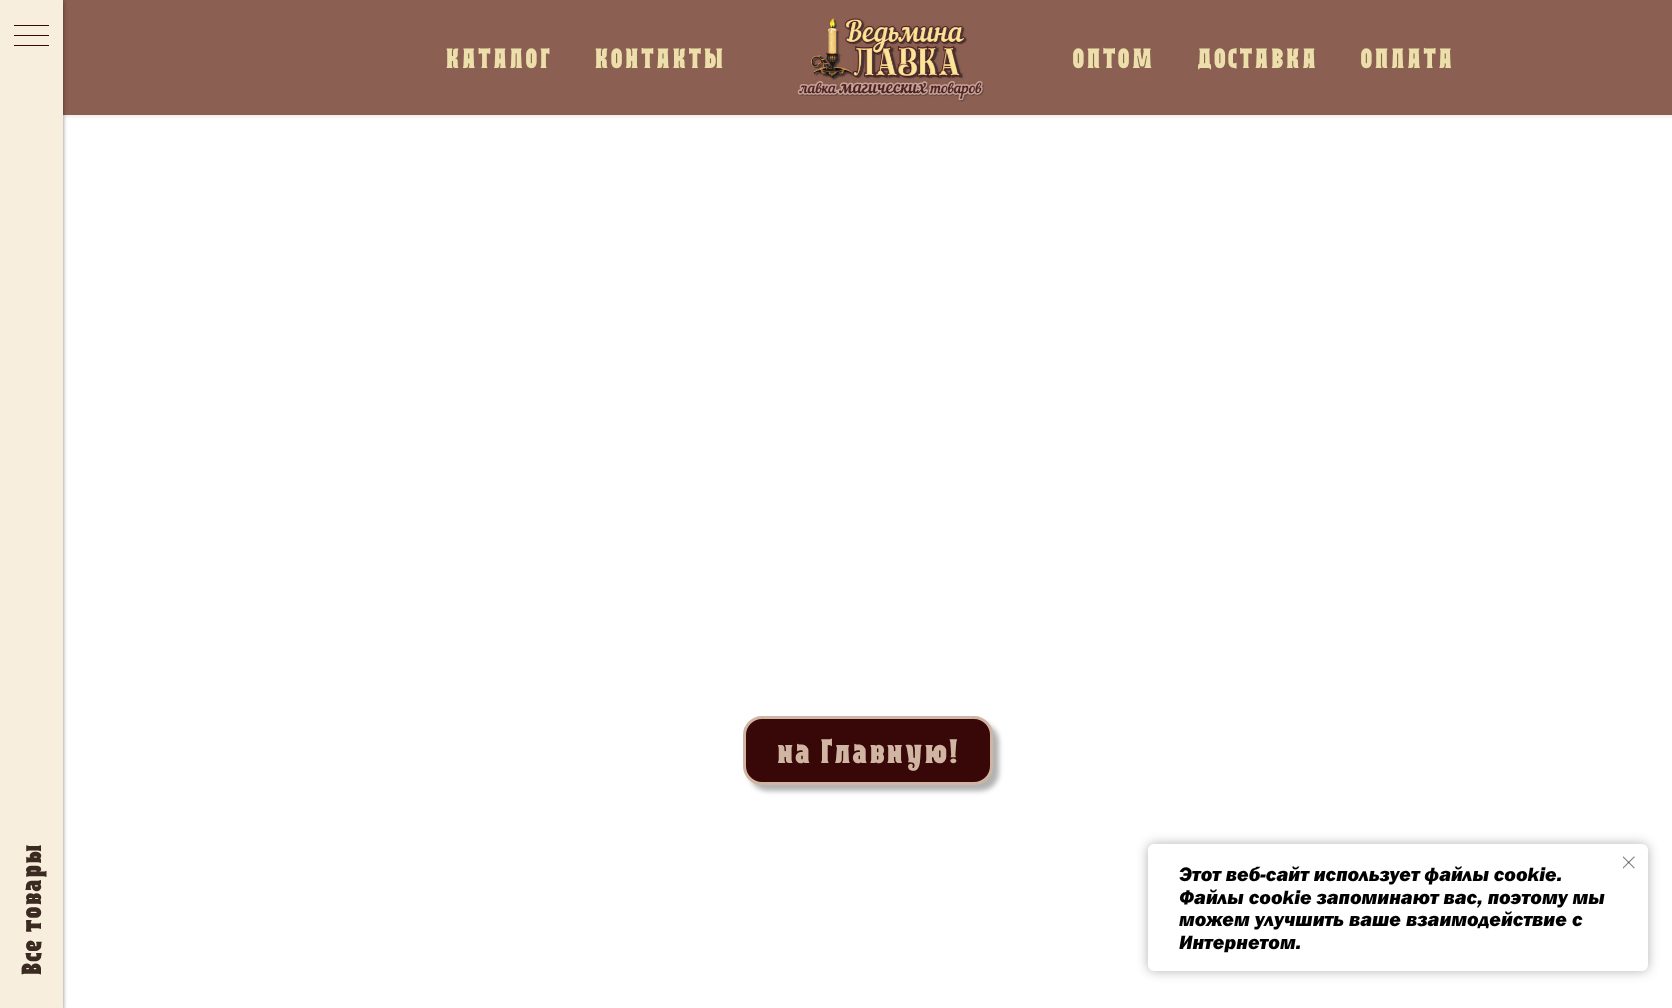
<svg xmlns="http://www.w3.org/2000/svg" width="1672" height="1008" viewBox="0 0 1672 1008">
  <rect width="100%" height="100%" fill="rgb(255,255,255)"/>
  <rect x="63" y="1" width="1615" height="115" fill="rgba(0,0,0,0.1)" filter="blur(2px)"/>
  <rect x="63" y="0" width="1609" height="115" fill="rgb(139,95,81)"/>
  <g font-family="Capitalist" font-size="22.5" letter-spacing="1.25" fill="rgb(237,223,171)">
    <text x="445" y="68">КАТАЛОГ</text>
    <text x="594" y="68">КОНТАКТЫ</text>
  </g>
  <image x="797" y="18" width="187" height="84" href="pic1.png"/>
  <g font-family="Capitalist" font-size="22.5" letter-spacing="1.25" fill="rgb(237,223,171)">
    <text x="1072" y="68">ОПТОМ</text>
    <text x="1197" y="68">ДОСТАВКА</text>
    <text x="1360" y="68">ОПЛАТА</text>
  </g>
  <rect x="-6" y="1" width="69" height="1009" fill="rgba(0,0,0,0.5)" filter="blur(2px)"/>
  <rect x="0" y="0" width="63" height="1008" fill="rgb(247,238,221)"/>
  <rect x="14" y="25" width="35" height="1" fill="rgb(56,7,7)"/>
  <rect x="14" y="35" width="35" height="1" fill="rgb(56,7,7)"/>
  <rect x="14" y="45" width="35" height="1" fill="rgb(56,7,7)"/>
  <text x="41" y="976" transform="rotate(-90 41 976)" font-family="Capitalist" font-size="22.5" fill="rgb(59,42,34)">Все товары</text>
  <rect x="749" y="723" width="250" height="68" rx="19" fill="rgba(0,0,0,0.3)" filter="blur(2.5px)"/>
  <rect x="744.5" y="717.5" width="247" height="66" rx="17.5" fill="rgb(56,7,7)" stroke="rgb(209,181,163)" stroke-width="3"/>
  <text x="776" y="763" font-family="Capitalist" font-size="27.5" fill="rgb(209,181,163)">на Главную!</text>
  <rect x="1148" y="844" width="500" height="127" rx="6" fill="rgba(0,0,0,0.3)" filter="blur(6px)"/>
  <rect x="1148" y="844" width="500" height="127" rx="6" fill="rgb(255,255,255)"/>
  <image x="1623" y="856" width="12" height="13" href="pic2.png"/>
  <g font-family="Franklin Gothic" font-size="20" font-weight="900" font-style="italic" fill="rgb(0,0,0)">
    <text>
      <tspan x="1179" y="881">Этот веб-сайт использует файлы cookie.</tspan>
      <tspan x="1179" y="904">Файлы cookie запоминают вас, поэтому мы</tspan>
      <tspan x="1179" y="926">можем улучшить ваше взаимодействие с</tspan>
      <tspan x="1179" y="949">Интернетом.</tspan>
    </text>
  </g>
</svg>
